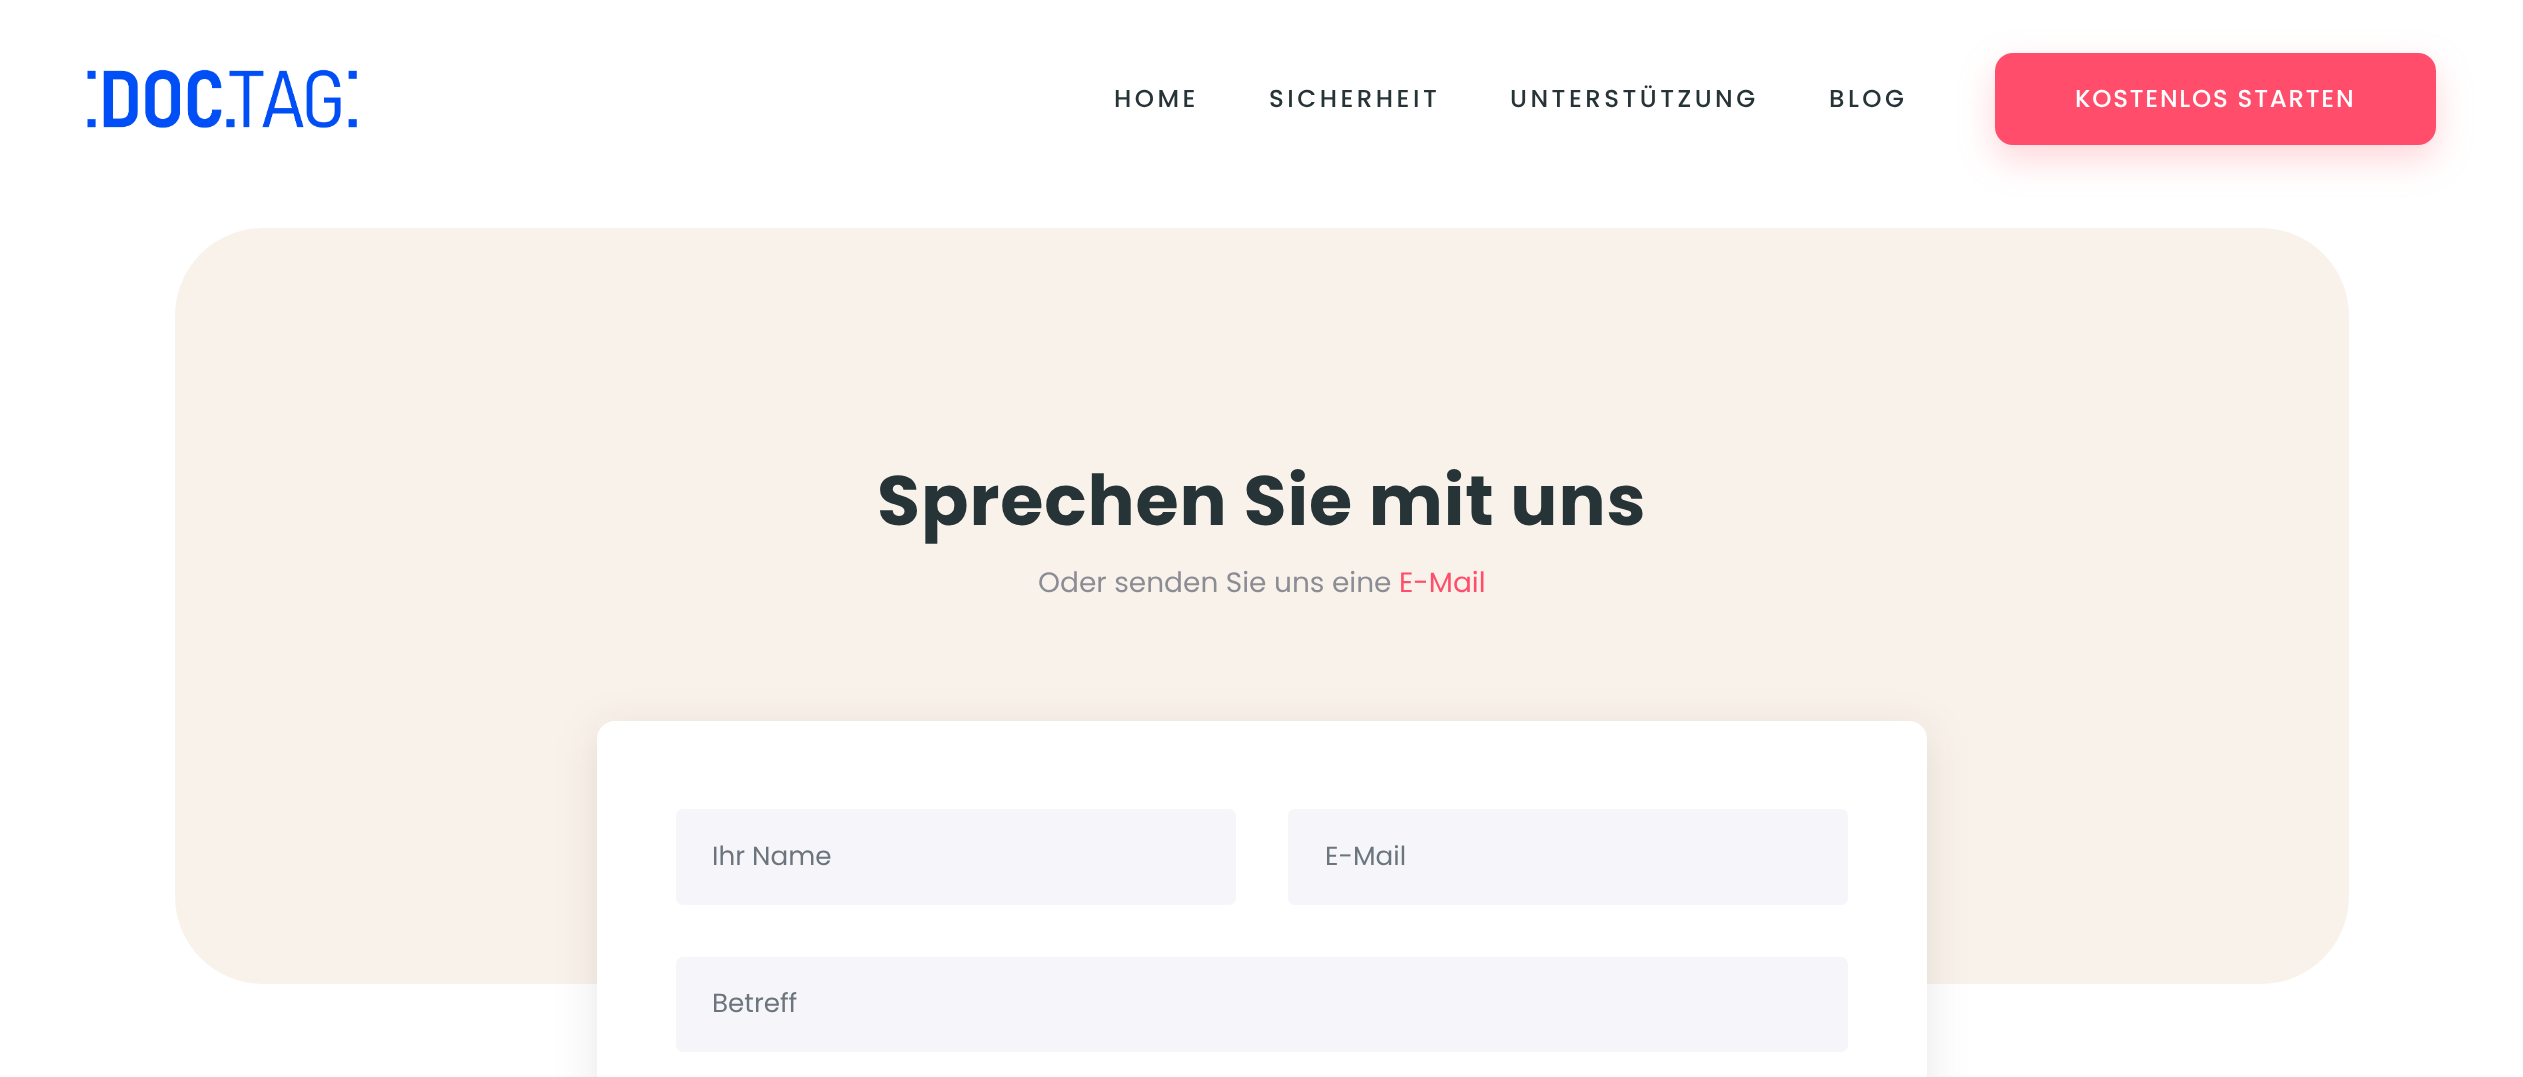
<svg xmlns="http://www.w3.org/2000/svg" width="2523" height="1077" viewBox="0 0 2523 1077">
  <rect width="100%" height="100%" fill="rgb(255,255,255)"/>
  <image x="87" y="69" width="270" height="59" href="pic1.png"/>
  <g font-family="Poppins" font-size="24.5" font-weight="500" letter-spacing="3.5" fill="rgb(39,52,55)">
    <text x="1114" y="107">HOME</text>
    <text x="1269" y="107">SICHERHEIT</text>
    <text x="1510" y="107">UNTERSTÜTZUNG</text>
    <text x="1829" y="107">BLOG</text>
  </g>
  <rect x="1995" y="67" width="441" height="92" rx="18" fill="rgba(255,115,128,0.3)" filter="blur(17.5px)"/>
  <rect x="1995" y="53" width="441" height="92" rx="18" fill="rgb(255,77,107)"/>
  <text x="2075" y="107" font-family="Poppins" font-size="24.5" font-weight="500" letter-spacing="1.75" fill="rgb(255,255,255)">KOSTENLOS STARTEN</text>
  <rect x="175" y="228" width="2174" height="756" rx="88" fill="rgb(249,242,234)"/>
  <text x="877" y="525" font-family="Poppins" font-size="70" font-weight="bold" letter-spacing="0.9" fill="rgb(39,52,55)">Sprechen Sie mit uns</text>
  <text x="1038" y="592" font-family="Poppins" font-size="28" fill="rgb(140,140,148)">Oder senden Sie uns eine</text>
  <text x="1399" y="592" font-family="Poppins" font-size="28" fill="rgb(255,77,107)">E-Mail</text>
  <rect x="597" y="730" width="1330" height="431" rx="18" fill="rgba(25,24,29,0.1)" filter="blur(22px)"/>
  <rect x="597" y="721" width="1330" height="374" rx="18" fill="rgb(255,255,255)"/>
  <rect x="676" y="809" width="560" height="96" rx="7" fill="rgb(246,246,250)"/>
  <text x="712" y="865" font-family="Poppins" font-size="26.25" fill="rgb(108,117,125)">Ihr Name</text>
  <rect x="1288" y="809" width="560" height="96" rx="7" fill="rgb(246,246,250)"/>
  <text x="1325" y="865" font-family="Poppins" font-size="26.25" fill="rgb(108,117,125)">E-Mail</text>
  <rect x="676" y="957" width="1172" height="95" rx="7" fill="rgb(246,246,250)"/>
  <text x="712" y="1012" font-family="Poppins" font-size="26.25" fill="rgb(108,117,125)">Betreff</text>
</svg>
